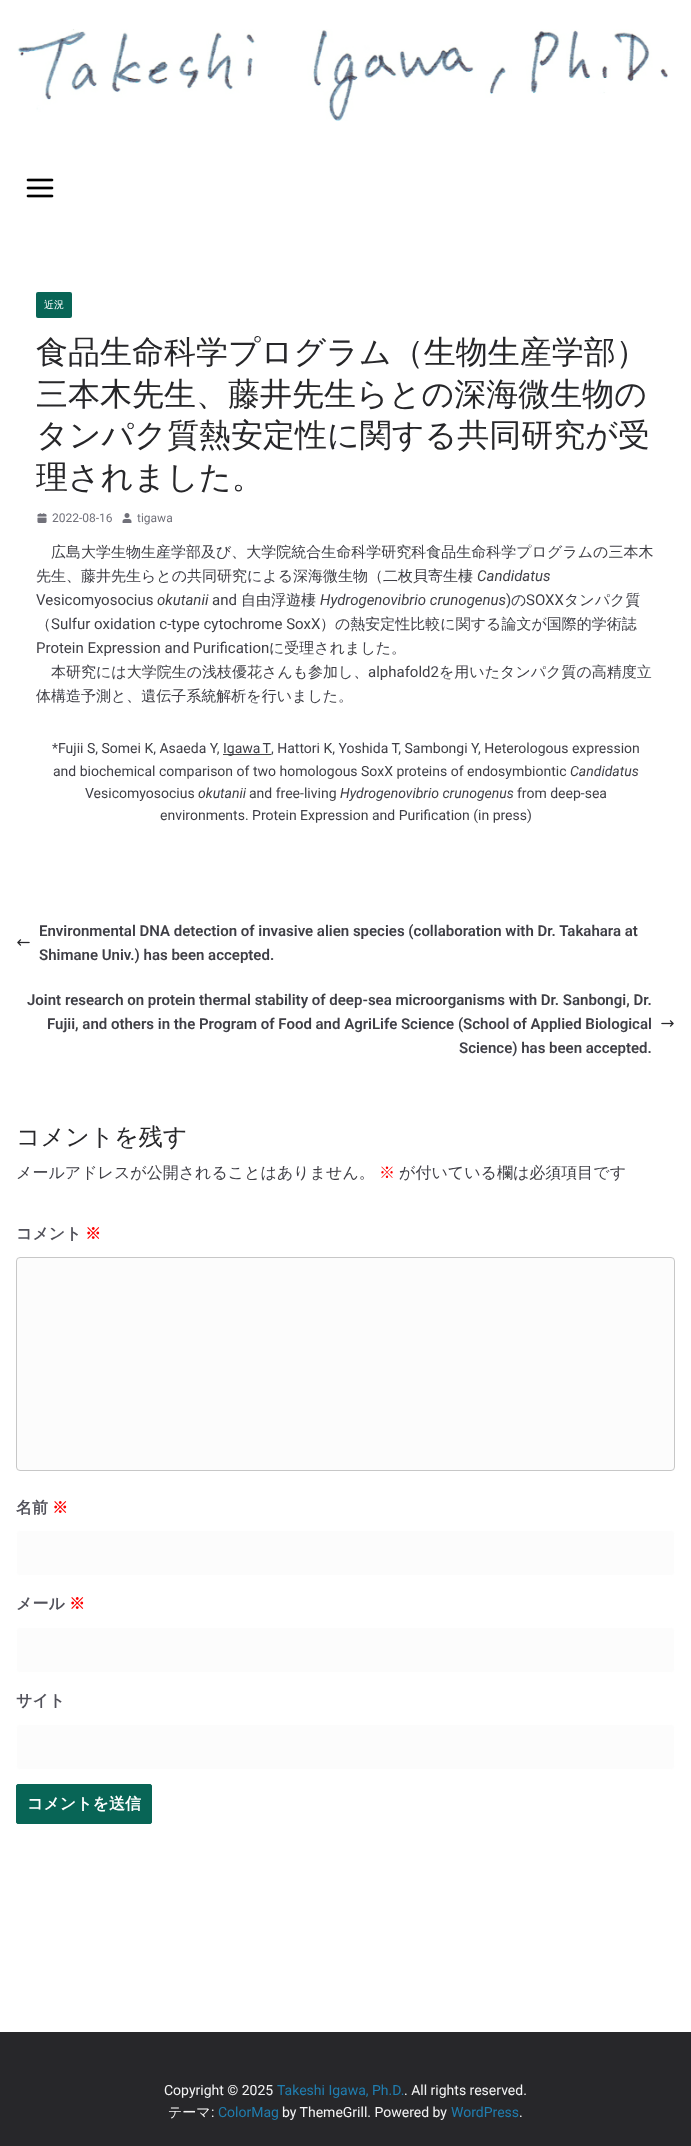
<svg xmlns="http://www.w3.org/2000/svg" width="691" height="2146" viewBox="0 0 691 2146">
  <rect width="100%" height="100%" fill="rgb(255,255,255)"/>
  <image x="17" y="29" width="651" height="92" href="pic1.png"/>
  <image x="26" y="178" width="28" height="20" href="pic2.png"/>
  <rect x="36" y="292" width="36" height="26" rx="2" fill="rgb(8,101,86)"/>
  <text x="44" y="308" font-family="WenQuanYi Zen Hei" font-size="10" font-weight="500" fill="rgb(255,255,255)">近況</text>
  <g font-family="WenQuanYi Zen Hei" font-size="32" font-weight="500" fill="rgb(39,39,42)">
    <text>
      <tspan x="36" y="363">食品生命科学プログラム（生物生産学部）</tspan>
      <tspan x="36" y="405">三本木先生、藤井先生らとの深海微生物の</tspan>
      <tspan x="36" y="446">タンパク質熱安定性に関する共同研究が受</tspan>
      <tspan x="36" y="488">理されました。</tspan>
    </text>
  </g>
  <image x="37" y="513" width="10" height="10" href="pic3.png"/>
  <text x="52" y="522" font-family="Roboto" font-size="12" fill="rgb(113,113,122)">2022-08-16</text>
  <image x="122" y="513" width="10" height="10" href="pic4.png"/>
  <text x="137" y="522" font-family="Roboto" font-size="12" fill="rgb(113,113,122)">tigawa</text>
  <g font-family="WenQuanYi Zen Hei" font-size="15" font-weight="500" fill="rgb(63,63,70)">
    <text x="51" y="557">広島大学生物生産学部及び、大学院統合生命科学研究科食品生命科学プログラムの三本木</text>
    <text x="36" y="581">先生、藤井先生らとの共同研究による深海微生物（二枚貝寄生棲</text>
  </g>
  <text x="477" y="581" font-family="Roboto" font-size="15" font-style="italic" fill="rgb(63,63,70)">Candidatus</text>
  <text x="36" y="605" font-family="Roboto" font-size="15" fill="rgb(63,63,70)">Vesicomyosocius</text>
  <text x="157" y="605" font-family="Roboto" font-size="15" font-style="italic" fill="rgb(63,63,70)">okutanii</text>
  <text x="212" y="605" font-family="Roboto" font-size="15" fill="rgb(63,63,70)">and</text>
  <text x="241" y="605" font-family="WenQuanYi Zen Hei" font-size="15" font-weight="500" fill="rgb(63,63,70)">自由浮遊棲</text>
  <text x="320" y="605" font-family="Roboto" font-size="15" font-style="italic" fill="rgb(63,63,70)">Hydrogenovibrio crunogenus</text>
  <text x="506" y="605" font-family="Roboto" font-size="15" fill="rgb(63,63,70)">)</text>
  <text x="511" y="605" font-family="WenQuanYi Zen Hei" font-size="15" font-weight="500" fill="rgb(63,63,70)">の</text>
  <text x="526" y="605" font-family="Roboto" font-size="15" fill="rgb(63,63,70)">SOXX</text>
  <g font-family="WenQuanYi Zen Hei" font-size="15" font-weight="500" fill="rgb(63,63,70)">
    <text x="564" y="605">タンパク質</text>
    <text x="36" y="629">（</text>
  </g>
  <text x="51" y="629" font-family="Roboto" font-size="15" fill="rgb(63,63,70)">Sulfur oxidation c-type cytochrome SoxX</text>
  <text x="320" y="629" font-family="WenQuanYi Zen Hei" font-size="15" font-weight="500" fill="rgb(63,63,70)">）の熱安定性比較に関する論文が国際的学術誌</text>
  <text x="36" y="653" font-family="Roboto" font-size="15" fill="rgb(63,63,70)">Protein Expression and Purification</text>
  <g font-family="WenQuanYi Zen Hei" font-size="15" font-weight="500" fill="rgb(63,63,70)">
    <text x="269" y="653">に受理されました。</text>
    <text x="51" y="677">本研究には大学院生の浅枝優花さんも参加し、</text>
  </g>
  <text x="368" y="677" font-family="Roboto" font-size="15" fill="rgb(63,63,70)">alphafold2</text>
  <g font-family="WenQuanYi Zen Hei" font-size="15" font-weight="500" fill="rgb(63,63,70)">
    <text x="439" y="677">を用いたタンパク質の高精度立</text>
    <text x="36" y="701">体構造予測と、遺伝子系統解析を行いました。</text>
  </g>
  <text x="52" y="753" font-family="Roboto" font-size="14" fill="rgb(63,63,70)">*Fujii S, Somei K, Asaeda Y,</text>
  <rect x="223" y="754" width="48" height="1" fill="rgb(68,68,68)"/>
  <g font-family="Roboto" font-size="14" fill="rgb(63,63,70)">
    <text x="223" y="753" word-spacing="-1">Igawa T</text>
    <text x="271" y="753">, Hattori K, Yoshida T, Sambongi Y, Heterologous expression</text>
    <text x="53" y="776">and biochemical comparison of two homologous SoxX proteins of endosymbiontic</text>
  </g>
  <text x="570" y="776" font-family="Roboto" font-size="14" font-style="italic" fill="rgb(63,63,70)">Candidatus</text>
  <text x="85" y="798" font-family="Roboto" font-size="14" fill="rgb(63,63,70)">Vesicomyosocius</text>
  <text x="198" y="798" font-family="Roboto" font-size="14" font-style="italic" fill="rgb(63,63,70)">okutanii</text>
  <text x="249" y="798" font-family="Roboto" font-size="14" fill="rgb(63,63,70)">and free-living</text>
  <text x="340" y="798" font-family="Roboto" font-size="14" font-style="italic" fill="rgb(63,63,70)">Hydrogenovibrio crunogenus</text>
  <g font-family="Roboto" font-size="14" fill="rgb(63,63,70)">
    <text x="517" y="798">from deep-sea</text>
    <text x="160" y="820">environments. Protein Expression and Purification (in press)</text>
  </g>
  <text x="39" y="936" font-family="Roboto" font-size="15" font-weight="600" fill="rgb(63,63,70)">Environmental DNA detection of invasive alien species (collaboration with Dr. Takahara at</text>
  <image x="17" y="939" width="13" height="7" href="pic5.png"/>
  <g font-family="Roboto" font-size="15" font-weight="600" fill="rgb(63,63,70)">
    <text x="39" y="960">Shimane Univ.) has been accepted.</text>
    <text x="27" y="1005">Joint research on protein thermal stability of deep-sea microorganisms with Dr. Sanbongi, Dr.</text>
    <text x="47" y="1029">Fujii, and others in the Program of Food and AgriLife Science (School of Applied Biological</text>
  </g>
  <image x="661" y="1020" width="13" height="7" href="pic6.png"/>
  <text x="459" y="1053" font-family="Roboto" font-size="15" font-weight="600" fill="rgb(63,63,70)">Science) has been accepted.</text>
  <text x="16" y="1145" font-family="WenQuanYi Zen Hei" font-size="24" font-weight="500" fill="rgb(39,39,42)">コメントを残す</text>
  <text x="16" y="1178" font-family="WenQuanYi Zen Hei" font-size="16" font-weight="500" fill="rgb(63,63,70)">メールアドレスが公開されることはありません。</text>
  <text x="379" y="1178" font-family="WenQuanYi Zen Hei" font-size="16" font-weight="500" fill="rgb(255,0,0)">※</text>
  <text x="399" y="1178" font-family="WenQuanYi Zen Hei" font-size="16" font-weight="500" fill="rgb(63,63,70)">が付いている欄は必須項目です</text>
  <text x="16" y="1239" font-family="WenQuanYi Zen Hei" font-size="16" font-weight="bold" fill="rgb(82,82,91)">コメント</text>
  <text x="85" y="1239" font-family="WenQuanYi Zen Hei" font-size="16" font-weight="bold" fill="rgb(255,0,0)">※</text>
  <rect x="16.5" y="1257.5" width="658" height="213" rx="3.5" fill="rgb(252,252,252)" stroke="rgb(199,199,199)"/>
  <text x="16" y="1513" font-family="WenQuanYi Zen Hei" font-size="16" font-weight="bold" fill="rgb(82,82,91)">名前</text>
  <text x="52" y="1513" font-family="WenQuanYi Zen Hei" font-size="16" font-weight="bold" fill="rgb(255,0,0)">※</text>
  <rect x="16.5" y="1530.5" width="658" height="45" rx="3.5" fill="rgb(252,252,252)" stroke="rgb(255,255,255)"/>
  <text x="16" y="1609" font-family="WenQuanYi Zen Hei" font-size="16" font-weight="bold" fill="rgb(82,82,91)">メール</text>
  <text x="69" y="1609" font-family="WenQuanYi Zen Hei" font-size="16" font-weight="bold" fill="rgb(255,0,0)">※</text>
  <rect x="16.5" y="1627.5" width="658" height="45" rx="3.5" fill="rgb(252,252,252)" stroke="rgb(255,255,255)"/>
  <text x="16" y="1706" font-family="WenQuanYi Zen Hei" font-size="16" font-weight="bold" fill="rgb(82,82,91)">サイト</text>
  <rect x="16.5" y="1724.5" width="658" height="45" rx="3.5" fill="rgb(252,252,252)" stroke="rgb(255,255,255)"/>
  <rect x="16.5" y="1784.5" width="135" height="39" rx="1.5" fill="rgb(8,101,86)" stroke="rgb(8,101,86)"/>
  <text x="27" y="1809" font-family="WenQuanYi Zen Hei" font-size="16" font-weight="bold" fill="rgb(255,255,255)">コメントを送信</text>
  <rect x="0" y="2032" width="691" height="114" fill="rgb(39,39,42)"/>
  <text x="164" y="2095" font-family="Roboto" font-size="14" fill="rgb(244,244,245)">Copyright © 2025</text>
  <text x="277" y="2095" font-family="Roboto" font-size="14" fill="rgb(32,125,175)">Takeshi Igawa, Ph.D.</text>
  <text x="404" y="2095" font-family="Roboto" font-size="14" fill="rgb(244,244,245)">. All rights reserved.</text>
  <text x="168" y="2117" font-family="WenQuanYi Zen Hei" font-size="14" font-weight="500" fill="rgb(244,244,245)">テーマ</text>
  <text x="211" y="2117" font-family="Roboto" font-size="14" fill="rgb(244,244,245)">:</text>
  <text x="218" y="2117" font-family="Roboto" font-size="14" fill="rgb(32,125,175)">ColorMag</text>
  <text x="282" y="2117" font-family="Roboto" font-size="14" fill="rgb(244,244,245)">by ThemeGrill. Powered by</text>
  <text x="451" y="2117" font-family="Roboto" font-size="14" fill="rgb(32,125,175)">WordPress</text>
  <text x="519" y="2117" font-family="Roboto" font-size="14" fill="rgb(244,244,245)">.</text>
</svg>
